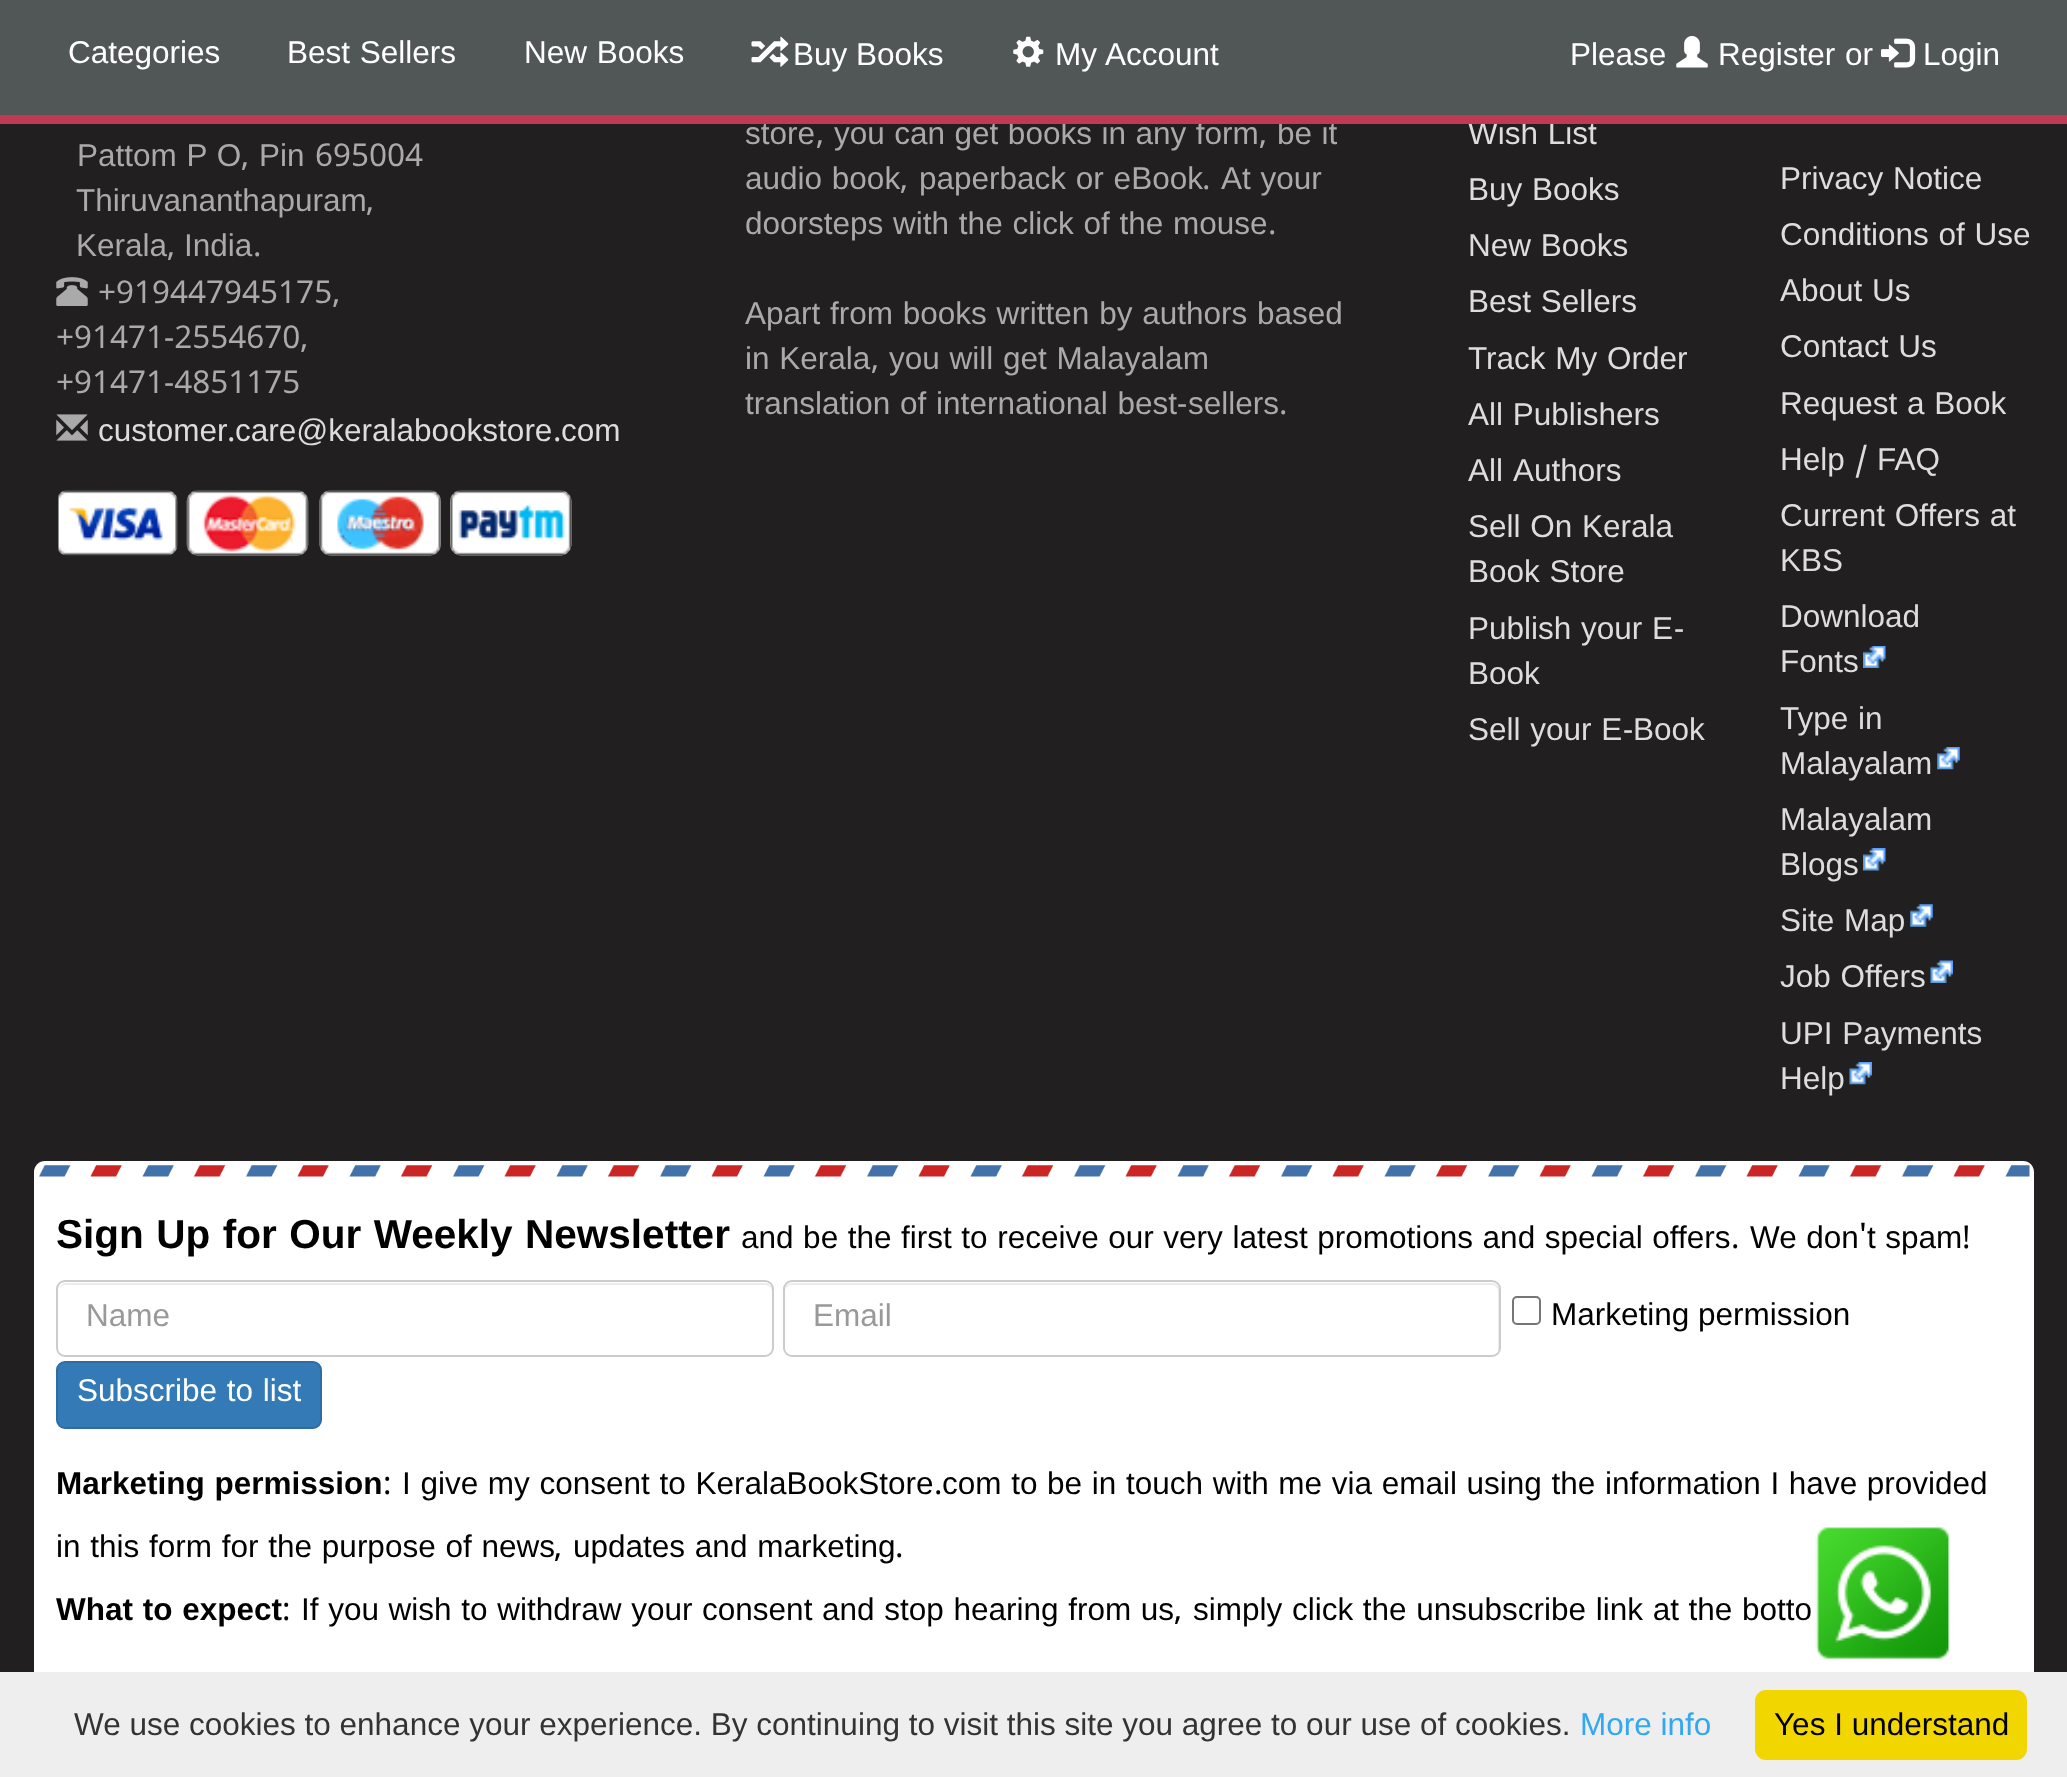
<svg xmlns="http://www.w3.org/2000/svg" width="2067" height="1777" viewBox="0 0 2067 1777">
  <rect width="100%" height="100%" fill="rgb(33,31,32)"/>
  <rect x="0" y="0" width="2067" height="115" fill="rgb(81,87,87)"/>
  <g font-family="Liberation Sans" font-size="31.5" fill="rgb(170,170,170)">
    <text x="745" y="144">store</text>
    <text x="834" y="144" word-spacing="0.75">you can get books in any form</text>
    <text x="1277" y="144" word-spacing="0.75">be it</text>
  </g>
  <text x="1468" y="144" word-spacing="1" font-family="Liberation Sans" font-size="31.5" fill="rgb(221,221,221)">Wish List</text>
  <rect x="0" y="115" width="2067" height="9" fill="rgb(193,58,85)"/>
  <g font-family="Liberation Sans" font-size="31.5" fill="rgb(255,255,255)">
    <text x="68" y="63">Categories</text>
    <text x="287" y="63" word-spacing="1">Best Sellers</text>
    <text x="524" y="63" word-spacing="1">New Books</text>
  </g>
  <image x="751" y="36" width="38" height="31" href="pic1.png"/>
  <text x="793" y="65" font-family="Liberation Sans" font-size="31.5" fill="rgb(255,255,255)">Buy Books</text>
  <image x="1013" y="36" width="31" height="31" href="pic2.png"/>
  <g font-family="Liberation Sans" font-size="31.5" fill="rgb(255,255,255)">
    <text x="1055" y="65" word-spacing="1">My Account</text>
    <text x="1570" y="65">Please</text>
  </g>
  <image x="1676" y="36" width="32" height="32" href="pic3.png"/>
  <text x="1718" y="65" word-spacing="1" font-family="Liberation Sans" font-size="31.5" fill="rgb(255,255,255)">Register or</text>
  <image x="1881" y="38" width="35" height="30" href="pic4.png"/>
  <text x="1923" y="65" font-family="Liberation Sans" font-size="31.5" fill="rgb(255,255,255)">Login</text>
  <text x="77" y="166" word-spacing="1" font-family="Liberation Sans" font-size="31.5" fill="rgb(170,170,170)">Pattom P O</text>
  <text x="241" y="166" font-family="Noto Sans Malayalam" font-size="31.5" fill="rgb(170,170,170)">,</text>
  <text x="259" y="166" font-family="Liberation Sans" font-size="31.5" fill="rgb(170,170,170)">Pin</text>
  <text x="315" y="166" font-family="Noto Sans Malayalam" font-size="31.5" fill="rgb(170,170,170)">695004</text>
  <text x="76" y="211" font-family="Liberation Sans" font-size="31.5" fill="rgb(170,170,170)">Thiruvananthapuram</text>
  <text x="366" y="211" font-family="Noto Sans Malayalam" font-size="31.5" fill="rgb(170,170,170)">,</text>
  <text x="76" y="256" font-family="Liberation Sans" font-size="31.5" fill="rgb(170,170,170)">Kerala</text>
  <text x="167" y="256" font-family="Noto Sans Malayalam" font-size="31.5" fill="rgb(170,170,170)">,</text>
  <text x="184" y="256" font-family="Liberation Sans" font-size="31.5" fill="rgb(170,170,170)">India</text>
  <text x="253" y="256" font-family="Noto Sans Malayalam" font-size="31.5" fill="rgb(170,170,170)">.</text>
  <image x="56" y="277" width="32" height="29" href="pic5.png"/>
  <g font-family="Noto Sans Malayalam" font-size="31.5" fill="rgb(170,170,170)">
    <text x="98" y="303">+919447945175,</text>
    <text>
      <tspan x="56" y="348">+91471-2554670,</tspan>
      <tspan x="56" y="393">+91471-4851175</tspan>
    </text>
  </g>
  <image x="56" y="414" width="32" height="27" href="pic6.png"/>
  <text x="98" y="441" font-family="Liberation Sans" font-size="31.5" fill="rgb(221,221,221)">customer</text>
  <text x="227" y="441" font-family="Noto Sans Malayalam" font-size="31.5" fill="rgb(221,221,221)">.</text>
  <text x="235" y="441" font-family="Liberation Sans" font-size="31.5" fill="rgb(221,221,221)">care@keralabookstore</text>
  <text x="553" y="441" font-family="Noto Sans Malayalam" font-size="31.5" fill="rgb(221,221,221)">.</text>
  <text x="561" y="441" font-family="Liberation Sans" font-size="31.5" fill="rgb(221,221,221)">com</text>
  <image x="58" y="490" width="120" height="66" href="pic7.png"/>
  <image x="186" y="490" width="123" height="66" href="pic8.png"/>
  <image x="319" y="490" width="122" height="66" href="pic9.png"/>
  <image x="450" y="490" width="122" height="66" href="pic10.png"/>
  <g font-family="Noto Sans Malayalam" font-size="31.5" fill="rgb(170,170,170)">
    <text x="816" y="144">,</text>
    <text x="1259" y="144">,</text>
  </g>
  <text x="745" y="189" word-spacing="1" font-family="Liberation Sans" font-size="31.5" fill="rgb(170,170,170)">audio book</text>
  <text x="900" y="189" font-family="Noto Sans Malayalam" font-size="31.5" fill="rgb(170,170,170)">,</text>
  <text x="919" y="189" word-spacing="1" font-family="Liberation Sans" font-size="31.5" fill="rgb(170,170,170)">paperback or eBook</text>
  <text x="1202" y="189" font-family="Noto Sans Malayalam" font-size="31.5" fill="rgb(170,170,170)">.</text>
  <g font-family="Liberation Sans" font-size="31.5" fill="rgb(170,170,170)">
    <text x="1221" y="189" word-spacing="1">At your</text>
    <text x="745" y="234" word-spacing="1">doorsteps with the click of the mouse</text>
  </g>
  <text x="1268" y="234" font-family="Noto Sans Malayalam" font-size="31.5" fill="rgb(170,170,170)">.</text>
  <g font-family="Liberation Sans" font-size="31.5" fill="rgb(170,170,170)">
    <text>
      <tspan x="745" y="324" word-spacing="1">Apart from books written by authors based</tspan>
      <tspan x="745" y="369" word-spacing="1">in Kerala</tspan>
    </text>
  </g>
  <text x="871" y="369" font-family="Noto Sans Malayalam" font-size="31.5" fill="rgb(170,170,170)">,</text>
  <g font-family="Liberation Sans" font-size="31.5" fill="rgb(170,170,170)">
    <text x="889" y="369" word-spacing="1">you will get Malayalam</text>
    <text x="745" y="414" word-spacing="1">translation of international best</text>
  </g>
  <text x="1177" y="414" font-family="Noto Sans Malayalam" font-size="31.5" fill="rgb(170,170,170)">-</text>
  <text x="1188" y="414" font-family="Liberation Sans" font-size="31.5" fill="rgb(170,170,170)">sellers</text>
  <text x="1279" y="414" font-family="Noto Sans Malayalam" font-size="31.5" fill="rgb(170,170,170)">.</text>
  <g font-family="Liberation Sans" font-size="31.5" fill="rgb(221,221,221)">
    <text>
      <tspan x="1468" y="200" word-spacing="1">Buy Books</tspan>
      <tspan x="1468" y="256" word-spacing="1">New Books</tspan>
      <tspan x="1468" y="312" word-spacing="1">Best Sellers</tspan>
      <tspan x="1468" y="369" word-spacing="1">Track My Order</tspan>
      <tspan x="1468" y="425" word-spacing="1">All Publishers</tspan>
      <tspan x="1468" y="481" word-spacing="3">All Authors</tspan>
      <tspan x="1468" y="537" word-spacing="1">Sell On Kerala</tspan>
      <tspan x="1468" y="582" word-spacing="1">Book Store</tspan>
      <tspan x="1468" y="639" word-spacing="1">Publish your E</tspan>
    </text>
  </g>
  <text x="1674" y="639" font-family="Noto Sans Malayalam" font-size="31.5" fill="rgb(221,221,221)">-</text>
  <g font-family="Liberation Sans" font-size="31.5" fill="rgb(221,221,221)">
    <text>
      <tspan x="1468" y="684">Book</tspan>
      <tspan x="1468" y="740" word-spacing="1">Sell your E</tspan>
    </text>
  </g>
  <text x="1623" y="740" font-family="Noto Sans Malayalam" font-size="31.5" fill="rgb(221,221,221)">-</text>
  <g font-family="Liberation Sans" font-size="31.5" fill="rgb(221,221,221)">
    <text x="1633" y="740">Book</text>
    <text>
      <tspan x="1780" y="189" word-spacing="1">Privacy Notice</tspan>
      <tspan x="1780" y="245" word-spacing="1">Conditions of Use</tspan>
      <tspan x="1780" y="301" word-spacing="1">About Us</tspan>
      <tspan x="1780" y="357" word-spacing="1">Contact Us</tspan>
      <tspan x="1780" y="414" word-spacing="1">Request a Book</tspan>
      <tspan x="1780" y="470">Help</tspan>
    </text>
  </g>
  <text x="1855" y="470" font-family="Noto Sans Malayalam" font-size="31.5" fill="rgb(221,221,221)">/</text>
  <g font-family="Liberation Sans" font-size="31.5" fill="rgb(221,221,221)">
    <text x="1877" y="470">FAQ</text>
    <text>
      <tspan x="1780" y="526" word-spacing="1">Current Offers at</tspan>
      <tspan x="1780" y="571">KBS</tspan>
      <tspan x="1780" y="627">Download</tspan>
      <tspan x="1780" y="672">Fonts</tspan>
    </text>
  </g>
  <image x="1863" y="646" width="23" height="22" href="pic11.png"/>
  <g font-family="Liberation Sans" font-size="31.5" fill="rgb(221,221,221)">
    <text>
      <tspan x="1780" y="729" word-spacing="1">Type in</tspan>
      <tspan x="1780" y="774">Malayalam</tspan>
    </text>
  </g>
  <image x="1937" y="747" width="23" height="23" href="pic12.png"/>
  <g font-family="Liberation Sans" font-size="31.5" fill="rgb(221,221,221)">
    <text>
      <tspan x="1780" y="830">Malayalam</tspan>
      <tspan x="1780" y="875">Blogs</tspan>
    </text>
  </g>
  <image x="1863" y="848" width="23" height="23" href="pic13.png"/>
  <text x="1780" y="931" word-spacing="1" font-family="Liberation Sans" font-size="31.5" fill="rgb(221,221,221)">Site Map</text>
  <image x="1910" y="904" width="23" height="23" href="pic14.png"/>
  <text x="1780" y="987" word-spacing="1" font-family="Liberation Sans" font-size="31.5" fill="rgb(221,221,221)">Job Offers</text>
  <image x="1930" y="960" width="23" height="23" href="pic15.png"/>
  <g font-family="Liberation Sans" font-size="31.5" fill="rgb(221,221,221)">
    <text>
      <tspan x="1780" y="1044" word-spacing="1">UPI Payments</tspan>
      <tspan x="1780" y="1089">Help</tspan>
    </text>
  </g>
  <image x="1849" y="1062" width="23" height="23" href="pic16.png"/>
  <rect x="34" y="1161" width="2000" height="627" rx="11" fill="rgb(255,255,255)"/>
  <image x="39" y="1165" width="1991" height="12" href="pic17.png"/>
  <text x="56" y="1248" word-spacing="1.25" font-family="Liberation Sans" font-size="40.5" font-weight="bold" fill="rgb(0,0,0)">Sign Up for Our Weekly Newsletter</text>
  <text x="741" y="1248" word-spacing="0.8" font-family="Liberation Sans" font-size="31.5" fill="rgb(0,0,0)">and be the first to receive our very latest promotions and special offers</text>
  <text x="1731" y="1248" font-family="Noto Sans Malayalam" font-size="31.5" fill="rgb(0,0,0)">.</text>
  <text x="1750" y="1248" word-spacing="0.8" font-family="Liberation Sans" font-size="31.5" fill="rgb(0,0,0)">We don</text>
  <text x="1859" y="1248" font-family="Noto Sans Malayalam" font-size="31.5" fill="rgb(0,0,0)">'</text>
  <text x="1867" y="1248" word-spacing="0.8" font-family="Liberation Sans" font-size="31.5" fill="rgb(0,0,0)">t spam</text>
  <text x="1962" y="1248" font-family="Noto Sans Malayalam" font-size="31.5" fill="rgb(0,0,0)">!</text>
  <path d="M65 1285H765C769 1285 772 1288 772 1292V1290C772 1286 769 1283 765 1283H66C63 1283 60 1285 59 1288C61 1286 63 1285 65 1285Z" fill="rgb(236,236,236)"/>
  <rect x="57" y="1281" width="716" height="75" rx="8" fill="none" stroke="rgb(204,204,204)" stroke-width="2"/>
  <text x="86" y="1326" font-family="Liberation Sans" font-size="31.5" fill="rgb(153,153,153)">Name</text>
  <path d="M792 1285H1492C1495 1285 1498 1288 1498 1292V1352C1499 1351 1499 1349 1499 1348V1290C1499 1286 1496 1283 1492 1283H792C788 1283 785 1286 785 1290V1292C785 1288 788 1285 792 1285Z" fill="rgb(236,236,236)"/>
  <rect x="784" y="1281" width="716" height="75" rx="8" fill="none" stroke="rgb(204,204,204)" stroke-width="2"/>
  <text x="813" y="1326" font-family="Liberation Sans" font-size="31.5" fill="rgb(153,153,153)">Email</text>
  <rect x="1513" y="1297" width="27" height="27" rx="4" fill="none" stroke="rgb(118,118,118)" stroke-width="2"/>
  <text x="1551" y="1325" font-family="Liberation Sans" font-size="31.5" fill="rgb(0,0,0)">Marketing permission</text>
  <rect x="57" y="1362" width="264" height="66" rx="8" fill="rgb(51,122,183)" stroke="rgb(46,109,164)" stroke-width="2"/>
  <text x="77" y="1401" word-spacing="1" font-family="Liberation Sans" font-size="31.5" fill="rgb(255,255,255)">Subscribe to list</text>
  <text x="56" y="1494" word-spacing="1" font-family="Liberation Sans" font-size="31.5" font-weight="bold" fill="rgb(0,0,0)">Marketing permission</text>
  <text x="383" y="1494" font-family="Noto Sans Malayalam" font-size="31.5" fill="rgb(0,0,0)">:</text>
  <text x="402" y="1494" word-spacing="0.9" font-family="Liberation Sans" font-size="31.5" fill="rgb(0,0,0)">I give my consent to KeralaBookStore</text>
  <text x="934" y="1494" font-family="Noto Sans Malayalam" font-size="31.5" fill="rgb(0,0,0)">.</text>
  <g font-family="Liberation Sans" font-size="31.5" fill="rgb(0,0,0)">
    <text x="942" y="1494" word-spacing="0.9">com to be in touch with me via email using the information I have provided</text>
    <text x="56" y="1557" word-spacing="1">in this form for the purpose of news</text>
  </g>
  <text x="554" y="1557" font-family="Noto Sans Malayalam" font-size="31.5" fill="rgb(0,0,0)">,</text>
  <text x="573" y="1557" word-spacing="1" font-family="Liberation Sans" font-size="31.5" fill="rgb(0,0,0)">updates and marketing</text>
  <text x="895" y="1557" font-family="Noto Sans Malayalam" font-size="31.5" fill="rgb(0,0,0)">.</text>
  <text x="56" y="1620" word-spacing="1" font-family="Liberation Sans" font-size="31.5" font-weight="bold" fill="rgb(0,0,0)">What to expect</text>
  <text x="282" y="1620" font-family="Noto Sans Malayalam" font-size="31.5" fill="rgb(0,0,0)">:</text>
  <text x="301" y="1620" word-spacing="0.9" font-family="Liberation Sans" font-size="31.5" fill="rgb(0,0,0)">If you wish to withdraw your consent and stop hearing from us</text>
  <text x="1174" y="1620" font-family="Noto Sans Malayalam" font-size="31.5" fill="rgb(0,0,0)">,</text>
  <text x="1193" y="1620" word-spacing="0.9" font-family="Liberation Sans" font-size="31.5" fill="rgb(0,0,0)">simply click the unsubscribe link at the botto</text>
  <image x="1815" y="1527" width="135" height="132" href="pic18.png"/>
  <rect x="0" y="1672" width="2067" height="105" fill="rgb(238,238,238)"/>
  <text x="74" y="1735" font-family="Liberation Sans" font-size="31.5" fill="rgb(51,51,51)">We use cookies to enhance your experience. By continuing to visit this site you agree to our use of cookies.</text>
  <text x="1580" y="1735" font-family="Liberation Sans" font-size="31.5" fill="rgb(49,168,240)">More info</text>
  <rect x="1755" y="1690" width="272" height="70" rx="11" fill="rgb(241,214,0)"/>
  <text x="1774" y="1735" font-family="Liberation Sans" font-size="31.5" fill="rgb(0,0,0)">Yes I understand</text>
</svg>
